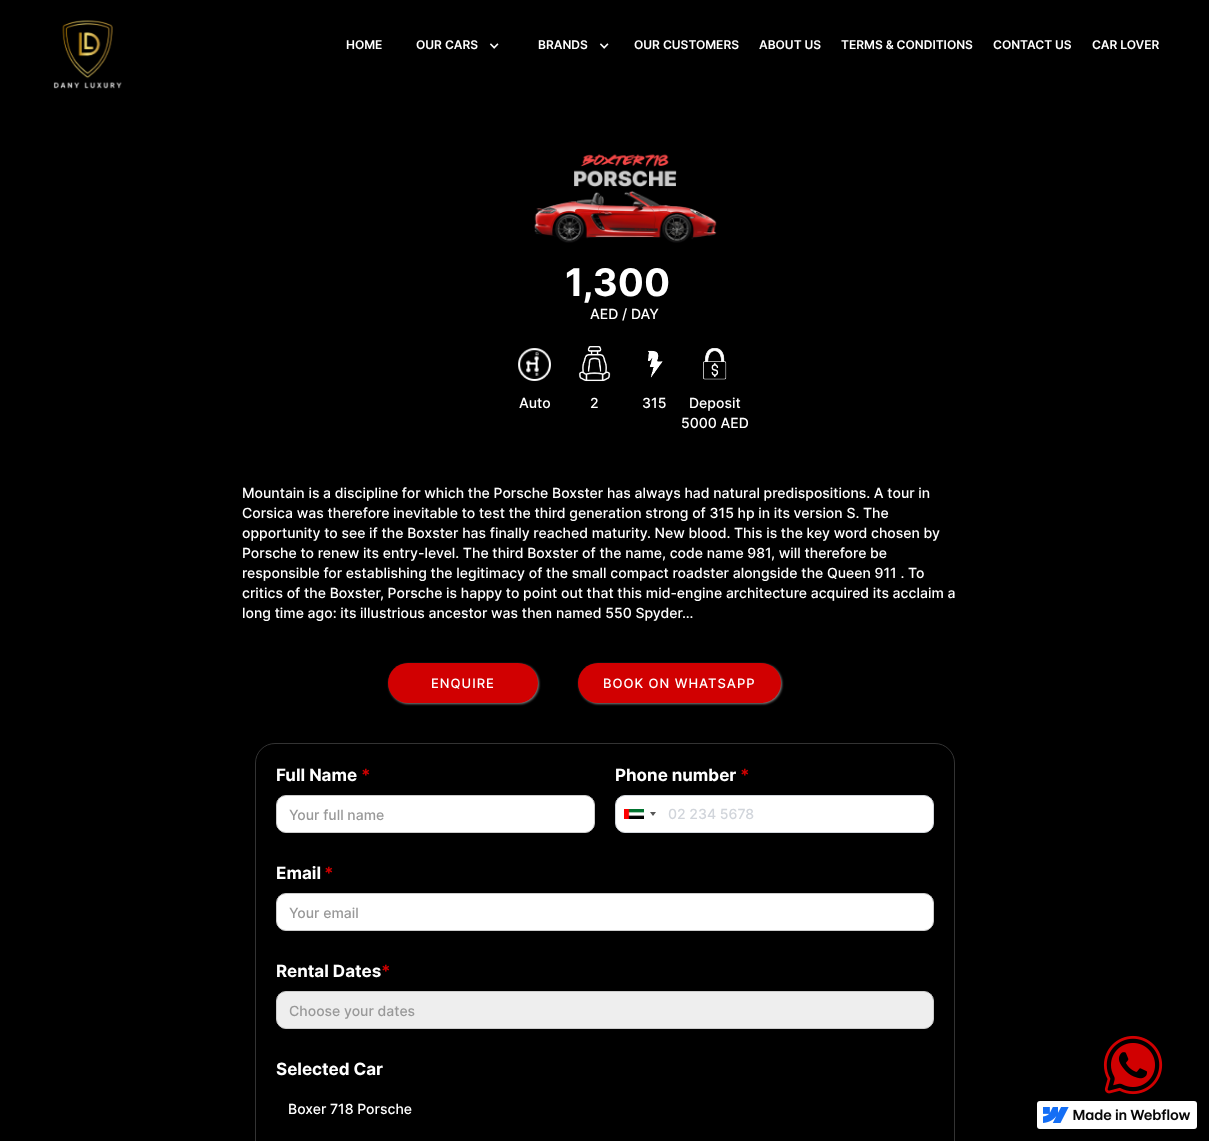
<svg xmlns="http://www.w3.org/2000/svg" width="1209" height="1141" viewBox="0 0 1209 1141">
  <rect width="100%" height="100%" fill="rgb(0,0,0)"/>
  <image x="53" y="20" width="69" height="69" href="pic1.png"/>
  <g font-family="Inter" font-size="12" font-weight="600" fill="rgb(255,255,255)">
    <text x="346" y="49">HOME</text>
    <text x="416" y="49">OUR CARS</text>
  </g>
  <image x="489" y="43" width="10" height="6" href="pic2.png"/>
  <text x="538" y="49" font-family="Inter" font-size="12" font-weight="600" fill="rgb(255,255,255)">BRANDS</text>
  <image x="599" y="43" width="10" height="6" href="pic2.png"/>
  <g font-family="Inter" font-size="12" font-weight="600" fill="rgb(255,255,255)">
    <text x="634" y="49">OUR CUSTOMERS</text>
    <text x="759" y="49">ABOUT US</text>
    <text x="841" y="49">TERMS &amp; CONDITIONS</text>
    <text x="993" y="49">CONTACT US</text>
    <text x="1092" y="49">CAR LOVER</text>
  </g>
  <image x="534" y="154" width="183" height="89" href="pic3.png"/>
  <text x="565" y="296" font-family="Inter" font-size="38" font-weight="bold" fill="rgb(255,255,255)">1,300</text>
  <text x="590" y="319" font-family="Inter" font-size="14" font-weight="500" fill="rgb(255,255,255)">AED / DAY</text>
  <image x="518" y="348" width="33" height="33" href="pic4.png"/>
  <text x="519" y="408" font-family="Inter" font-size="14" font-weight="500" fill="rgb(255,255,255)">Auto</text>
  <image x="578" y="346" width="33" height="36" href="pic5.png"/>
  <text x="590" y="408" font-family="Inter" font-size="14" font-weight="500" fill="rgb(255,255,255)">2</text>
  <image x="647" y="350" width="16" height="28" href="pic6.png"/>
  <text x="642" y="408" font-family="Inter" font-size="14" font-weight="500" fill="rgb(255,255,255)">315</text>
  <image x="703" y="348" width="24" height="32" href="pic7.png"/>
  <g font-family="Inter" font-size="14" font-weight="500" fill="rgb(255,255,255)">
    <text x="689" y="408">Deposit</text>
    <text x="681" y="428">5000 AED</text>
    <text>
      <tspan x="242" y="498">Mountain is a discipline for which the Porsche Boxster has always had natural predispositions. A tour in</tspan>
      <tspan x="242" y="518">Corsica was therefore inevitable to test the third generation strong of 315 hp in its version S. The</tspan>
      <tspan x="242" y="538">opportunity to see if the Boxster has finally reached maturity. New blood. This is the key word chosen by</tspan>
      <tspan x="242" y="558">Porsche to renew its entry-level. The third Boxster of the name, code name 981, will therefore be</tspan>
      <tspan x="242" y="578">responsible for establishing the legitimacy of the small compact roadster alongside the Queen 911 . To</tspan>
      <tspan x="242" y="598">critics of the Boxster, Porsche is happy to point out that this mid-engine architecture acquired its acclaim a</tspan>
      <tspan x="242" y="618">long time ago: its illustrious ancestor was then named 550 Spyder…</tspan>
    </text>
  </g>
  <rect x="389" y="664" width="150" height="40" rx="20" fill="rgba(255,255,255,0.5)" filter="blur(1px)"/>
  <rect x="388" y="663" width="150" height="40" rx="20" fill="rgb(209,0,1)"/>
  <text x="431" y="688" font-family="Inter" font-size="13" font-weight="500" letter-spacing="1" fill="rgb(255,255,255)">ENQUIRE</text>
  <rect x="579" y="664" width="203" height="40" rx="20" fill="rgba(255,255,255,0.5)" filter="blur(1px)"/>
  <rect x="578" y="663" width="203" height="40" rx="20" fill="rgb(209,0,1)"/>
  <text x="603" y="688" font-family="Inter" font-size="13" font-weight="500" letter-spacing="1" fill="rgb(255,255,255)">BOOK ON WHATSAPP</text>
  <rect x="255.5" y="743.5" width="699" height="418" rx="19.5" fill="none" stroke="rgb(51,51,51)"/>
  <text x="276" y="781" font-family="Inter" font-size="17" font-weight="bold" fill="rgb(255,255,255)">Full Name</text>
  <text x="361" y="781" font-family="Inter" font-size="17" font-weight="bold" fill="rgb(209,0,1)">*</text>
  <rect x="276.5" y="795.5" width="318" height="37" rx="9.5" fill="rgb(255,255,255)" stroke="rgb(204,204,204)"/>
  <text x="289" y="820" font-family="Inter" font-size="14" font-weight="500" fill="rgb(153,153,153)">Your full name</text>
  <text x="615" y="781" font-family="Inter" font-size="17" font-weight="bold" fill="rgb(255,255,255)">Phone number</text>
  <text x="740" y="781" font-family="Inter" font-size="17" font-weight="bold" fill="rgb(209,0,1)">*</text>
  <rect x="615.5" y="795.5" width="318" height="37" rx="9.5" fill="rgb(255,255,255)" stroke="rgb(209,213,219)"/>
  <rect x="624" y="809" width="20" height="10" fill="rgb(136,136,136)" filter="blur(0.5px)"/>
  <image x="624" y="809" width="20" height="10" href="pic8.png"/>
  <path d="M650 812H656L653 816Z" fill="rgb(85,85,85)"/>
  <text x="668" y="819" font-family="Inter" font-size="14" font-weight="500" fill="rgb(209,213,219)">02 234 5678</text>
  <text x="276" y="879" font-family="Inter" font-size="17" font-weight="bold" fill="rgb(255,255,255)">Email</text>
  <text x="324" y="879" font-family="Inter" font-size="17" font-weight="bold" fill="rgb(209,0,1)">*</text>
  <rect x="276.5" y="893.5" width="657" height="37" rx="9.5" fill="rgb(255,255,255)" stroke="rgb(204,204,204)"/>
  <text x="289" y="918" font-family="Inter" font-size="14" font-weight="500" fill="rgb(153,153,153)">Your email</text>
  <text x="276" y="977" font-family="Inter" font-size="17" font-weight="bold" fill="rgb(255,255,255)">Rental Dates</text>
  <text x="381" y="977" font-family="Inter" font-size="17" font-weight="bold" fill="rgb(209,0,1)">*</text>
  <rect x="276.5" y="991.5" width="657" height="37" rx="9.5" fill="rgb(238,238,238)" stroke="rgb(204,204,204)"/>
  <text x="289" y="1016" font-family="Inter" font-size="14" font-weight="500" fill="rgb(153,153,153)">Choose your dates</text>
  <text x="276" y="1075" font-family="Inter" font-size="17" font-weight="bold" fill="rgb(255,255,255)">Selected Car</text>
  <text x="288" y="1114" font-family="Inter" font-size="14" font-weight="500" fill="rgb(255,255,255)">Boxer 718 Porsche</text>
  <image x="1103" y="1035" width="60" height="60" href="pic9.png"/>
  <rect x="1037" y="1101" width="160" height="28" rx="3" fill="rgb(255,255,255)"/>
  <image x="1043" y="1107" width="26" height="16" href="pic10.png"/>
  <image x="1073" y="1109" width="118" height="12" href="pic11.png"/>
</svg>
